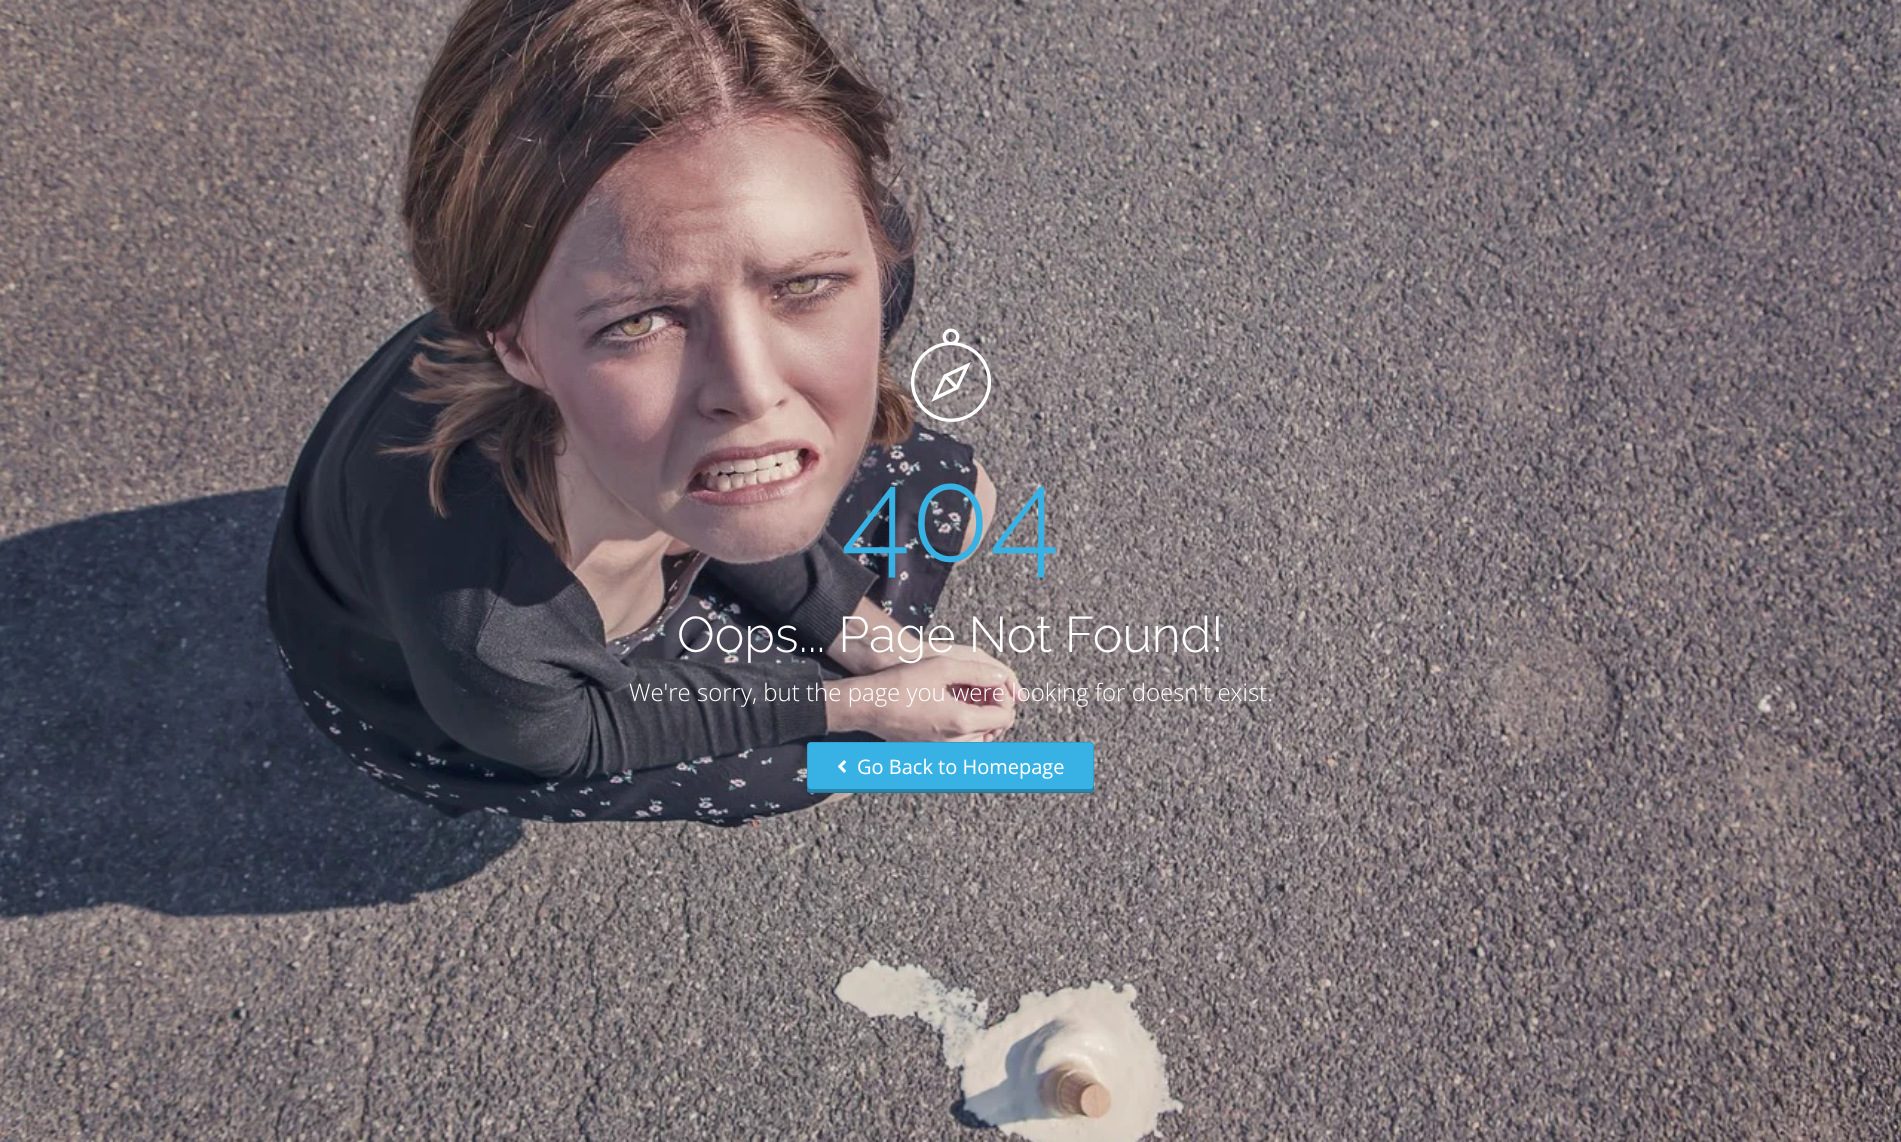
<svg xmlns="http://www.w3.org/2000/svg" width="1901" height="1142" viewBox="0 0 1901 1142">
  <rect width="100%" height="100%" fill="rgb(255,255,255)"/>
  <image x="0" y="0" width="1901" height="1142" href="pic1.png"/>
  <image x="911" y="328" width="80" height="94" href="pic2.png"/>
  <text x="841" y="561" font-family="Raleway" font-size="130" font-weight="300" fill="rgb(56,178,228)">404</text>
  <text x="677" y="652" font-family="Raleway" font-size="50" font-weight="300" fill="rgb(255,255,255)">Oops... Page Not Found!</text>
  <text x="629" y="701" font-family="Open Sans" font-size="24" font-weight="300" fill="rgb(255,255,255)">We're sorry, but the page you were looking for doesn't exist.</text>
  <rect x="807" y="742" width="287" height="51" rx="4" fill="rgb(56,178,228)"/>
  <rect x="807.5" y="742.5" width="286" height="50" rx="3.5" fill="none" stroke="rgba(0,0,0,0.1)"/>
  <path d="M807 785V789C807 791 809 793 811 793H1090C1092 793 1094 791 1094 789V785C1094 787 1092 789 1090 789H811C809 789 807 787 807 785Z" fill="rgba(0,0,0,0.25)"/>
  <image x="838" y="760" width="8" height="13" href="pic3.png"/>
  <text x="857" y="774" font-family="Open Sans" font-size="20" fill="rgb(255,255,255)">Go Back to Homepage</text>
</svg>
